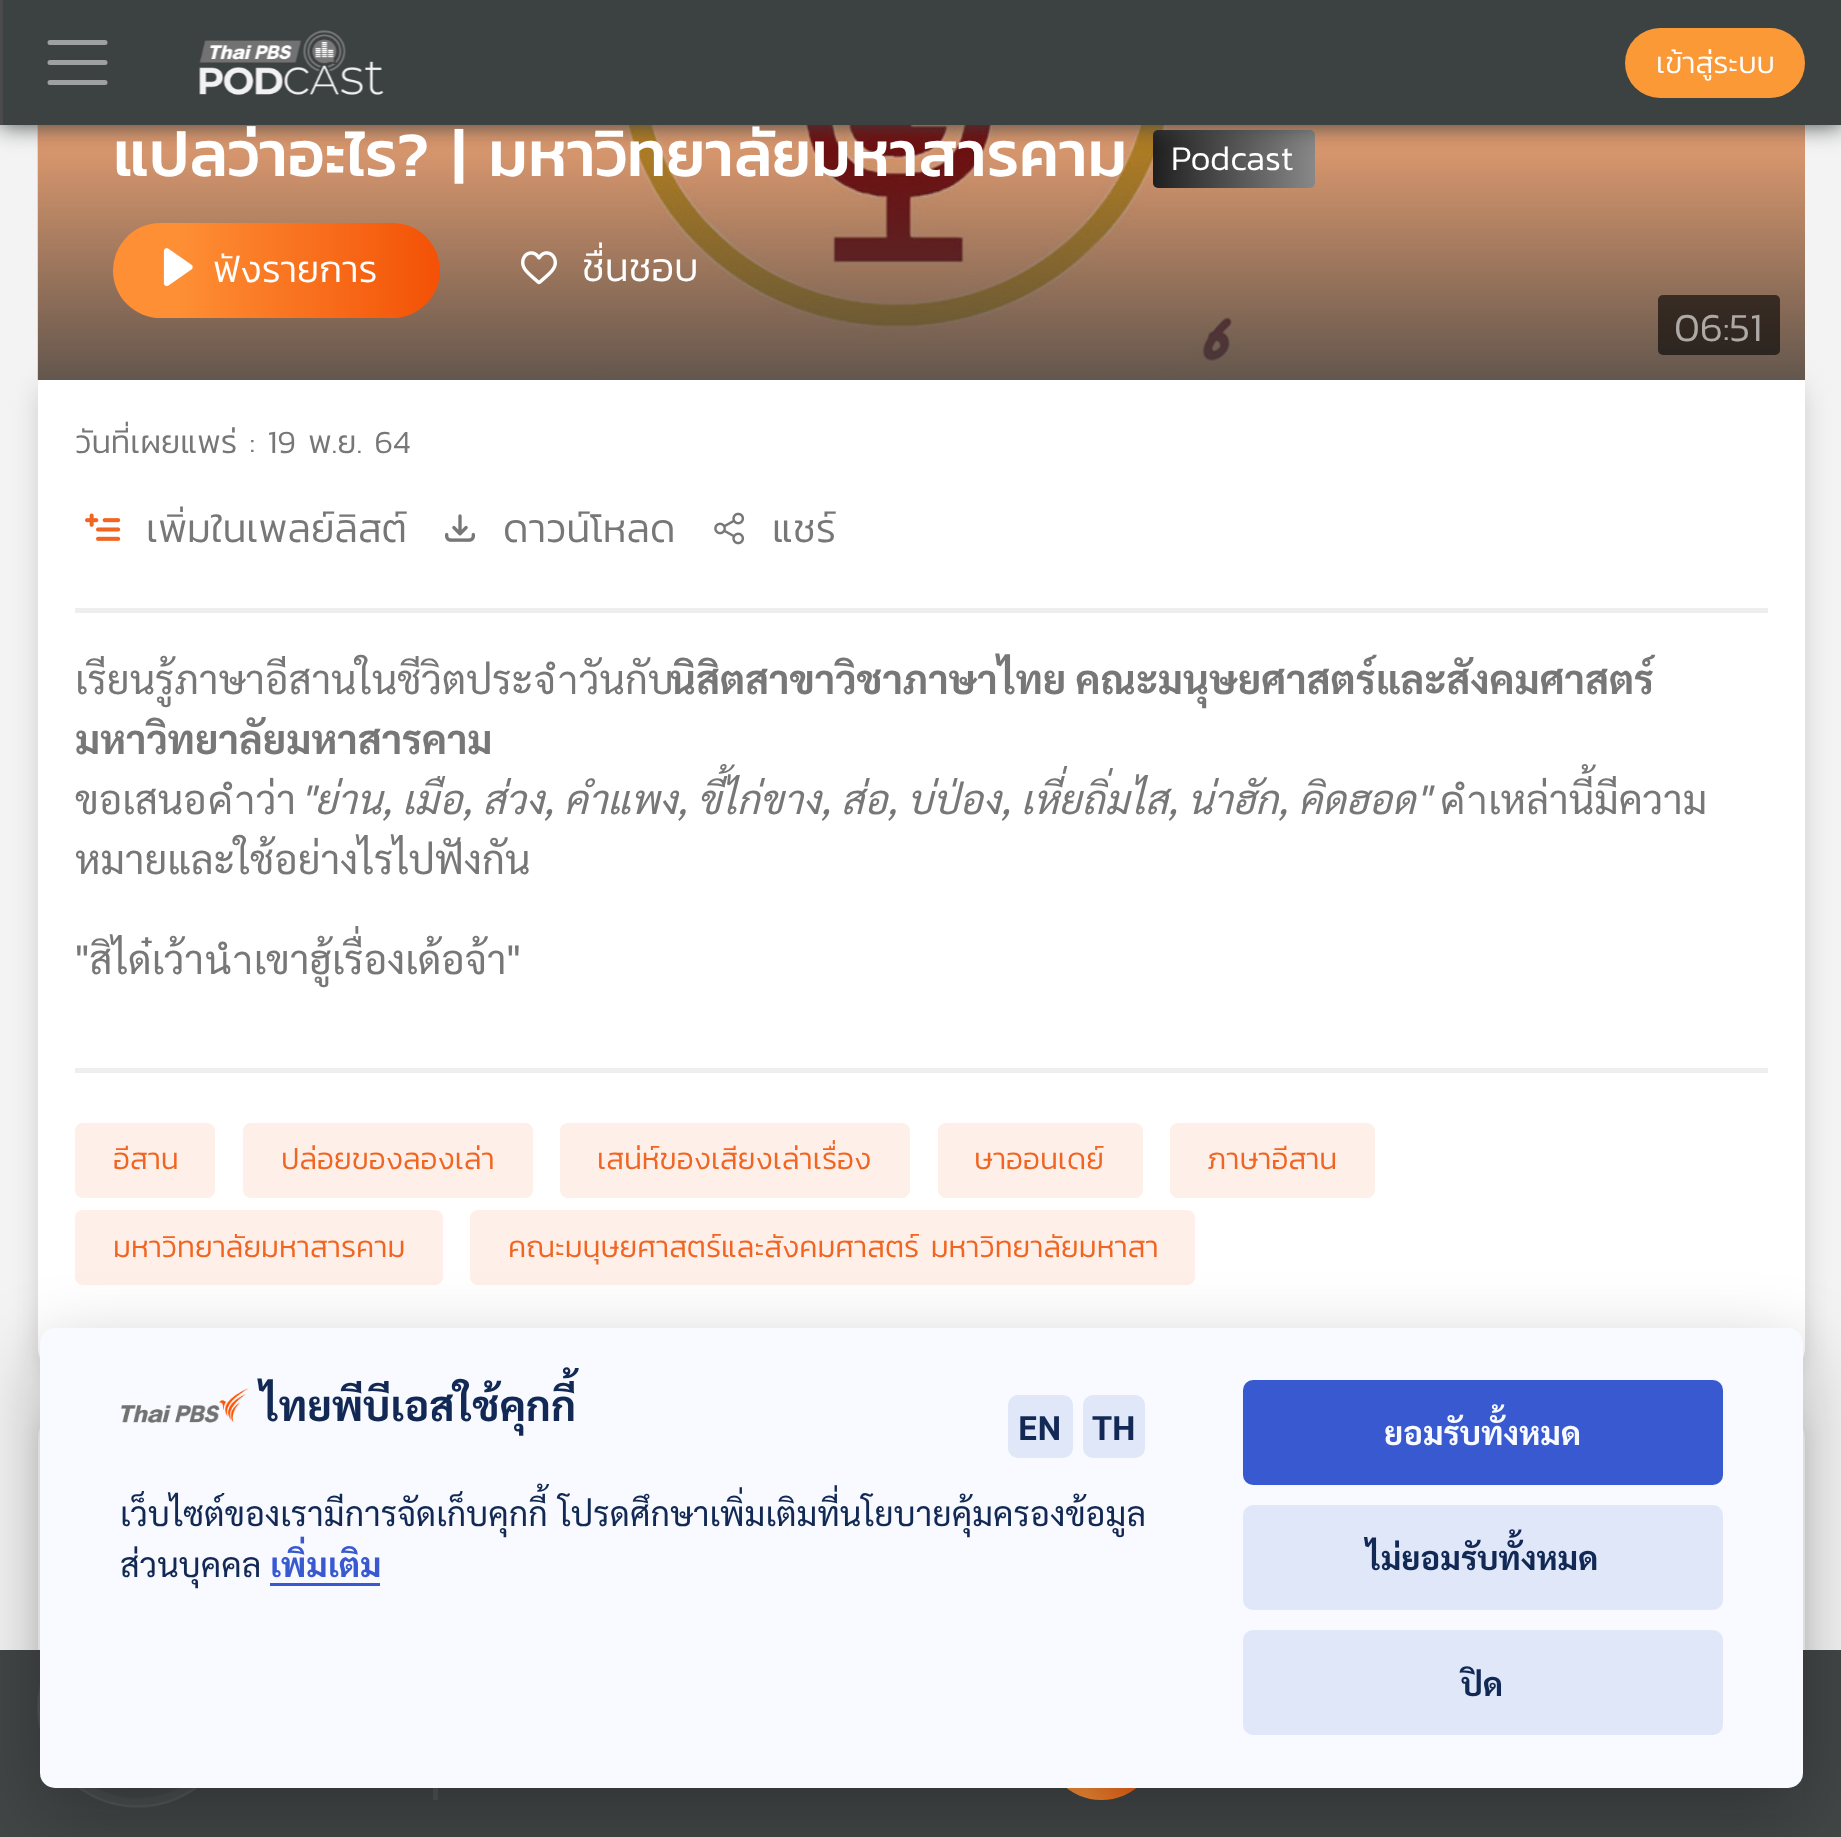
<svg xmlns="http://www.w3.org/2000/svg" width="1841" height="1837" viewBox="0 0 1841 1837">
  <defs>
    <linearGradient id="g1" gradientUnits="userSpaceOnUse" x1="1315" y1="159" x2="1153" y2="159"><stop offset="0" stop-color="rgb(136,136,136)"/><stop offset="1" stop-color="rgb(31,31,31)"/></linearGradient>
    <linearGradient id="g2" gradientUnits="userSpaceOnUse" x1="113" y1="270" x2="440" y2="270"><stop offset="0.2" stop-color="rgb(254,143,52)"/><stop offset="1" stop-color="rgb(243,81,6)"/></linearGradient>
    <linearGradient id="g3" gradientUnits="userSpaceOnUse" x1="1045" y1="1744" x2="1158" y2="1744"><stop offset="0.35" stop-color="rgb(254,144,53)"/><stop offset="1" stop-color="rgb(243,84,9)"/></linearGradient>
  </defs>
  <rect width="100%" height="100%" fill="rgb(243,243,243)"/>
  <rect x="38" y="380" width="1767" height="993" rx="25" fill="rgb(208,205,205)" filter="blur(12.5px)"/>
  <image x="37" y="125" width="1768" height="255" href="pic2.png"/>
  <rect x="1153" y="130" width="162" height="58" rx="5" fill="url(#g1)"/>
  <rect x="0" y="0" width="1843" height="125" fill="rgb(60,65,66)" filter="blur(12.5px)"/>
  <rect x="3" y="0" width="1838" height="125" fill="rgb(60,65,66)"/>
  <rect x="0" y="0" width="3" height="125" fill="rgb(75,75,75)"/>
  <path d="M50 42.5H105M50 62.5H105M50 82.5H105" fill="none" stroke="rgb(158,160,161)" stroke-width="5" stroke-linecap="round"/>
  <image x="199" y="30" width="185" height="65" href="pic1.png"/>
  <rect x="1625" y="28" width="180" height="70" rx="35" fill="rgb(251,153,55)"/>
  <text x="1656" y="73" font-family="Kanit" font-size="30" font-weight="300" fill="rgb(255,255,255)">เข้าสู่ระบบ</text>
  <text x="113" y="176" font-family="Kanit" font-size="64" font-weight="500" fill="rgb(255,255,255)">แปลว่าอะไร? | มหาวิทยาลัยมหาสารคาม</text>
  <text x="1171" y="170" font-family="Kanit" font-size="35" font-weight="300" fill="rgb(255,255,255)">Podcast</text>
  <rect x="113" y="223" width="327" height="95" rx="47.5" fill="url(#g2)"/>
  <image x="163" y="248" width="30" height="38" href="pic3.png"/>
  <text x="213" y="282" font-family="Kanit" font-size="37.5" font-weight="300" fill="rgb(255,255,255)">ฟังรายการ</text>
  <image x="521" y="251" width="36" height="34" href="pic4.png"/>
  <text x="582" y="281" font-family="Kanit" font-size="40" font-weight="300" fill="rgb(255,255,255)">ชื่นชอบ</text>
  <rect x="1658" y="295" width="122" height="60" rx="5" fill="rgba(0,0,0,0.6)"/>
  <text x="1674" y="341" font-family="Kanit" font-size="40" font-weight="300" fill="rgb(173,169,166)">06:51</text>
  <path d="M38 380H1805V1348C1805 1362 1794 1373 1780 1373H63C49 1373 38 1362 38 1348Z" fill="rgb(255,255,255)"/>
  <text x="75" y="453" font-family="Kanit" font-size="32.5" font-weight="300" fill="rgb(119,119,119)">วันที่เผยแพร่ : 19 พ.ย. 64</text>
  <rect x="75" y="608" width="1693" height="5" fill="rgb(238,238,238)"/>
  <image x="85" y="513" width="36" height="28" href="pic5.png"/>
  <text x="146" y="542" font-family="Kanit" font-size="40" font-weight="300" fill="rgb(119,119,119)">เพิ่มในเพลย์ลิสต์</text>
  <image x="445" y="514" width="30" height="28" href="pic6.png"/>
  <text x="503" y="542" font-family="Kanit" font-size="40" font-weight="300" fill="rgb(119,119,119)">ดาวน์โหลด</text>
  <image x="714" y="512" width="31" height="33" href="pic7.png"/>
  <text x="772" y="542" font-family="Kanit" font-size="40" font-weight="300" fill="rgb(119,119,119)">แชร์</text>
  <text x="75" y="694" font-family="Sarabun" font-size="40" fill="rgb(119,119,119)">เรียนรู้ภาษาอีสานในชีวิตประจำวันกับ</text>
  <g font-family="Sarabun" font-size="40" font-weight="bold" fill="rgb(119,119,119)">
    <text x="670" y="694">นิสิตสาขาวิชาภาษาไทย คณะมนุษยศาสตร์และสังคมศาสตร์</text>
    <text x="75" y="754">มหาวิทยาลัยมหาสารคาม</text>
  </g>
  <text x="75" y="814" font-family="Sarabun" font-size="40" fill="rgb(119,119,119)">ขอเสนอคำว่า</text>
  <text x="300" y="814" font-family="Sarabun" font-size="40" font-style="italic" fill="rgb(119,119,119)">"ย่าน, เมือ, ส่วง, คำแพง, ขี้ไก่ขาง, ส่อ, บ่ป่อง, เหี่ยถิ่มไส, น่าฮัก, คิดฮอด"</text>
  <g font-family="Sarabun" font-size="40" fill="rgb(119,119,119)">
    <text x="1439" y="814">คำเหล่านี้มีความ</text>
    <text x="75" y="874">หมายและใช้อย่างไรไปฟังกัน</text>
    <text x="75" y="974">"สิได๋เว้านำเขาฮู้เรื่องเด้อจ้า"</text>
  </g>
  <rect x="75" y="1068" width="1693" height="5" fill="rgb(238,238,238)"/>
  <rect x="75" y="1123" width="140" height="75" rx="8" fill="rgb(254,239,232)"/>
  <text x="113" y="1169" font-family="Kanit" font-size="30" font-weight="300" fill="rgb(241,101,34)">อีสาน</text>
  <rect x="243" y="1123" width="290" height="75" rx="8" fill="rgb(254,239,232)"/>
  <text x="281" y="1169" font-family="Kanit" font-size="30" font-weight="300" fill="rgb(241,101,34)">ปล่อยของลองเล่า</text>
  <rect x="560" y="1123" width="350" height="75" rx="8" fill="rgb(254,239,232)"/>
  <text x="597" y="1169" font-family="Kanit" font-size="30" font-weight="300" fill="rgb(241,101,34)">เสน่ห์ของเสียงเล่าเรื่อง</text>
  <rect x="938" y="1123" width="205" height="75" rx="8" fill="rgb(254,239,232)"/>
  <text x="974" y="1169" font-family="Kanit" font-size="30" font-weight="300" fill="rgb(241,101,34)">ษาออนเดย์</text>
  <rect x="1170" y="1123" width="205" height="75" rx="8" fill="rgb(254,239,232)"/>
  <text x="1207" y="1169" font-family="Kanit" font-size="30" font-weight="300" fill="rgb(241,101,34)">ภาษาอีสาน</text>
  <rect x="75" y="1210" width="368" height="75" rx="8" fill="rgb(254,239,232)"/>
  <text x="113" y="1257" font-family="Kanit" font-size="30" font-weight="300" fill="rgb(241,101,34)">มหาวิทยาลัยมหาสารคาม</text>
  <rect x="470" y="1210" width="725" height="75" rx="8" fill="rgb(254,239,232)"/>
  <text x="508" y="1257" font-family="Kanit" font-size="30" font-weight="300" fill="rgb(241,101,34)">คณะมนุษยศาสตร์และสังคมศาสตร์ มหาวิทยาลัยมหาสา</text>
  <rect x="38" y="1418" width="1767" height="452" rx="25" fill="rgba(0,0,0,0.08)" filter="blur(10px)"/>
  <rect x="38" y="1413" width="1767" height="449" rx="25" fill="rgb(255,255,255)"/>
  <rect x="0" y="1650" width="1841" height="187" fill="rgb(66,70,71)"/>
  <image x="37" y="1682" width="160" height="126" href="pic9.png"/>
  <rect x="433" y="1788" width="5" height="12" fill="rgb(79,83,84)"/>
  <rect x="1045" y="1688" width="113" height="112" rx="56" fill="url(#g3)"/>
  <rect x="40" y="1353" width="1763" height="460" rx="15" fill="rgba(2,2,3,0.28)" filter="blur(37.5px)"/>
  <rect x="40" y="1328" width="1763" height="460" rx="15" fill="rgb(249,250,255)"/>
  <image x="121" y="1388" width="128" height="35" href="pic8.png"/>
  <text x="260" y="1421" font-family="Sarabun" font-size="42" font-weight="bold" fill="rgb(17,41,84)">ไทยพีบีเอสใช้คุกกี้</text>
  <rect x="1008" y="1395" width="65" height="63" rx="10" fill="rgb(223,231,249)"/>
  <text x="1018" y="1440" font-family="Sarabun" font-size="34" font-weight="bold" fill="rgb(17,41,84)">EN</text>
  <rect x="1083" y="1395" width="62" height="63" rx="10" fill="rgb(223,231,249)"/>
  <text x="1092" y="1440" font-family="Sarabun" font-size="34" font-weight="bold" fill="rgb(17,41,84)">TH</text>
  <g font-family="Sarabun" font-size="34" fill="rgb(17,41,84)">
    <text>
      <tspan x="120" y="1526" word-spacing="2">เว็บไซต์ของเรามีการจัดเก็บคุกกี้ โปรดศึกษาเพิ่มเติมที่นโยบายคุ้มครองข้อมูล</tspan>
      <tspan x="120" y="1577">ส่วนบุคคล</tspan>
    </text>
  </g>
  <text x="270" y="1577" font-family="Sarabun" font-size="34" font-weight="bold" fill="rgb(56,89,208)">เพิ่มเติม</text>
  <rect x="270" y="1583" width="110" height="3" fill="rgb(56,89,208)"/>
  <rect x="1243" y="1380" width="480" height="105" rx="10" fill="rgb(56,89,208)"/>
  <text x="1384" y="1445" font-family="Sarabun" font-size="32.75" font-weight="bold" fill="rgb(249,250,255)">ยอมรับทั้งหมด</text>
  <rect x="1243" y="1505" width="480" height="105" rx="10" fill="rgb(223,231,249)"/>
  <text x="1366" y="1570" font-family="Sarabun" font-size="32.75" font-weight="bold" fill="rgb(17,41,84)">ไม่ยอมรับทั้งหมด</text>
  <rect x="1243" y="1630" width="480" height="105" rx="10" fill="rgb(223,231,249)"/>
  <text x="1461" y="1696" font-family="Sarabun" font-size="32.75" font-weight="bold" fill="rgb(17,41,84)">ปิด</text>
</svg>
